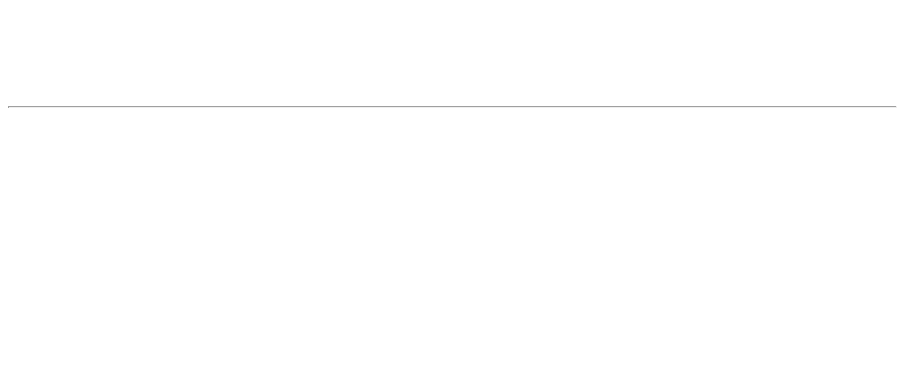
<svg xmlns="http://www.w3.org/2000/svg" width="905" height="380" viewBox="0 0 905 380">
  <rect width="100%" height="100%" fill="rgb(255,255,255)"/>
  <rect x="8" y="106" width="889" height="1" fill="rgb(159,159,159)"/>
  <rect x="896" y="106" width="1" height="2" fill="rgb(238,238,238)"/>
  <rect x="8" y="107" width="889" height="1" fill="rgb(238,238,238)"/>
  <rect x="8" y="106" width="1" height="2" fill="rgb(159,159,159)"/>
</svg>
